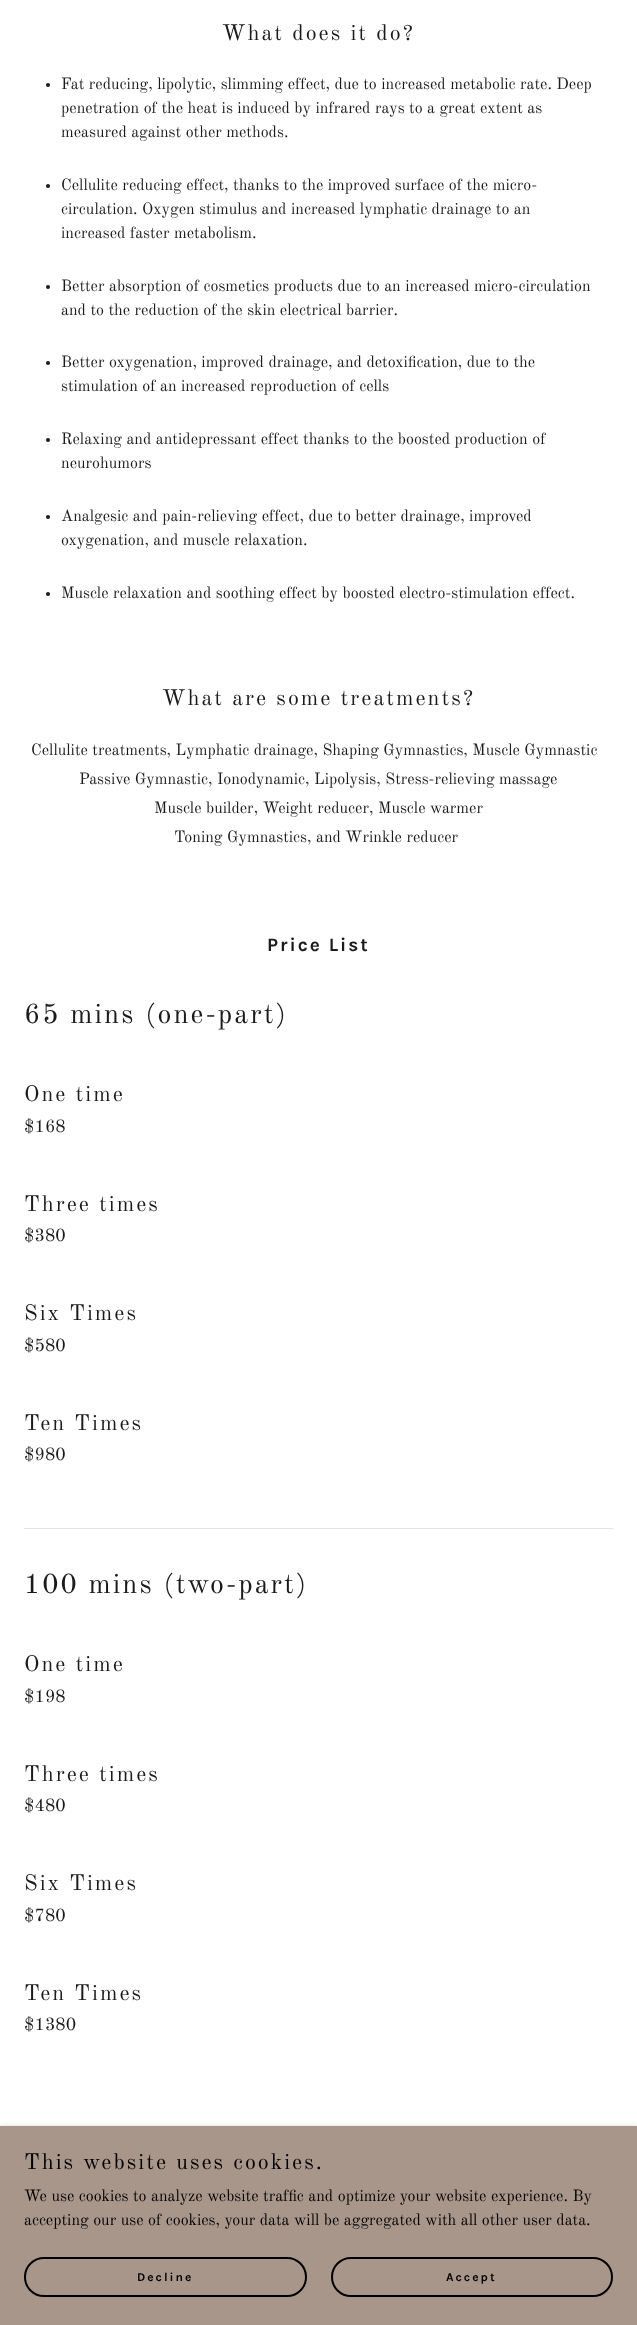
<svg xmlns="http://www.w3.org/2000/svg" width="637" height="2325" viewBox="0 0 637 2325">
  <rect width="100%" height="100%" fill="rgb(255,255,255)"/>
  <text x="222" y="40" font-family="Old Standard TT" font-size="22" letter-spacing="2" fill="rgb(27,27,27)">What does it do?</text>
  <circle cx="48" cy="85" r="2" fill="rgb(27,27,27)"/>
  <g font-family="Old Standard TT" font-size="16" fill="rgb(27,27,27)">
    <text>
      <tspan x="61" y="89">Fat reducing, lipolytic, slimming effect, due to increased metabolic rate. Deep</tspan>
      <tspan x="61" y="113">penetration of the heat is induced by infrared rays to a great extent as</tspan>
      <tspan x="61" y="137">measured against other methods.</tspan>
    </text>
  </g>
  <circle cx="48" cy="186" r="2" fill="rgb(27,27,27)"/>
  <g font-family="Old Standard TT" font-size="16" fill="rgb(27,27,27)">
    <text>
      <tspan x="61" y="190">Cellulite reducing effect, thanks to the improved surface of the micro-</tspan>
      <tspan x="61" y="214">circulation. Oxygen stimulus and increased lymphatic drainage to an</tspan>
      <tspan x="61" y="238">increased faster metabolism.</tspan>
    </text>
  </g>
  <circle cx="48" cy="287" r="2" fill="rgb(27,27,27)"/>
  <g font-family="Old Standard TT" font-size="16" fill="rgb(27,27,27)">
    <text>
      <tspan x="61" y="291">Better absorption of cosmetics products due to an increased micro-circulation</tspan>
      <tspan x="61" y="315">and to the reduction of the skin electrical barrier.</tspan>
    </text>
  </g>
  <circle cx="48" cy="363" r="2" fill="rgb(27,27,27)"/>
  <g font-family="Old Standard TT" font-size="16" fill="rgb(27,27,27)">
    <text>
      <tspan x="61" y="367">Better oxygenation, improved drainage, and detoxification, due to the</tspan>
      <tspan x="61" y="391">stimulation of an increased reproduction of cells</tspan>
    </text>
  </g>
  <circle cx="48" cy="440" r="2" fill="rgb(27,27,27)"/>
  <g font-family="Old Standard TT" font-size="16" fill="rgb(27,27,27)">
    <text>
      <tspan x="61" y="444">Relaxing and antidepressant effect thanks to the boosted production of</tspan>
      <tspan x="61" y="468">neurohumors</tspan>
    </text>
  </g>
  <circle cx="48" cy="517" r="2" fill="rgb(27,27,27)"/>
  <g font-family="Old Standard TT" font-size="16" fill="rgb(27,27,27)">
    <text>
      <tspan x="61" y="521">Analgesic and pain-relieving effect, due to better drainage, improved</tspan>
      <tspan x="61" y="545">oxygenation, and muscle relaxation.</tspan>
    </text>
  </g>
  <circle cx="48" cy="594" r="2" fill="rgb(27,27,27)"/>
  <text x="61" y="598" font-family="Old Standard TT" font-size="16" fill="rgb(27,27,27)">Muscle relaxation and soothing effect by boosted electro-stimulation effect.</text>
  <text x="162" y="705" font-family="Old Standard TT" font-size="22" letter-spacing="2" fill="rgb(27,27,27)">What are some treatments?</text>
  <g font-family="Old Standard TT" font-size="16" fill="rgb(27,27,27)">
    <text x="31" y="755">Cellulite treatments, Lymphatic drainage, Shaping Gymnastics, Muscle Gymnastic</text>
    <text x="79" y="784">Passive Gymnastic, Ionodynamic, Lipolysis, Stress-relieving massage</text>
    <text x="154" y="813">Muscle builder, Weight reducer, Muscle warmer</text>
    <text x="174" y="842">Toning Gymnastics, and Wrinkle reducer</text>
  </g>
  <text x="267" y="951" font-family="Karla" font-size="19" font-weight="bold" letter-spacing="2" fill="rgb(27,27,27)">Price List</text>
  <text x="24" y="1023" font-family="Old Standard TT" font-size="28" letter-spacing="2" fill="rgb(27,27,27)">65 mins (one-part)</text>
  <text x="24" y="1101" font-family="Old Standard TT" font-size="22" letter-spacing="2" fill="rgb(27,27,27)">One time</text>
  <text x="24" y="1132" font-family="Old Standard TT" font-size="18" fill="rgb(27,27,27)">$168</text>
  <text x="24" y="1211" font-family="Old Standard TT" font-size="22" letter-spacing="2" fill="rgb(27,27,27)">Three times</text>
  <text x="24" y="1241" font-family="Old Standard TT" font-size="18" fill="rgb(27,27,27)">$380</text>
  <text x="24" y="1320" font-family="Old Standard TT" font-size="22" letter-spacing="2" fill="rgb(27,27,27)">Six Times</text>
  <text x="24" y="1351" font-family="Old Standard TT" font-size="18" fill="rgb(27,27,27)">$580</text>
  <text x="24" y="1430" font-family="Old Standard TT" font-size="22" letter-spacing="2" fill="rgb(27,27,27)">Ten Times</text>
  <text x="24" y="1460" font-family="Old Standard TT" font-size="18" fill="rgb(27,27,27)">$980</text>
  <rect x="24" y="1528" width="589" height="1" fill="rgb(226,226,226)"/>
  <text x="24" y="1593" font-family="Old Standard TT" font-size="28" letter-spacing="2" fill="rgb(27,27,27)">100 mins (two-part)</text>
  <text x="24" y="1671" font-family="Old Standard TT" font-size="22" letter-spacing="2" fill="rgb(27,27,27)">One time</text>
  <text x="24" y="1702" font-family="Old Standard TT" font-size="18" fill="rgb(27,27,27)">$198</text>
  <text x="24" y="1781" font-family="Old Standard TT" font-size="22" letter-spacing="2" fill="rgb(27,27,27)">Three times</text>
  <text x="24" y="1811" font-family="Old Standard TT" font-size="18" fill="rgb(27,27,27)">$480</text>
  <text x="24" y="1890" font-family="Old Standard TT" font-size="22" letter-spacing="2" fill="rgb(27,27,27)">Six Times</text>
  <text x="24" y="1921" font-family="Old Standard TT" font-size="18" fill="rgb(27,27,27)">$780</text>
  <text x="24" y="2000" font-family="Old Standard TT" font-size="22" letter-spacing="2" fill="rgb(27,27,27)">Ten Times</text>
  <text x="24" y="2030" font-family="Old Standard TT" font-size="18" fill="rgb(27,27,27)">$1380</text>
  <rect x="0" y="2128" width="637" height="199" fill="rgba(0,0,0,0.3)" filter="blur(3px)"/>
  <rect x="0" y="2126" width="637" height="199" fill="rgb(168,150,139)"/>
  <text x="24" y="2169" font-family="Old Standard TT" font-size="22" letter-spacing="2" fill="rgb(0,0,0)">This website uses cookies.</text>
  <g font-family="Old Standard TT" font-size="16" fill="rgb(0,0,0)">
    <text>
      <tspan x="24" y="2201">We use cookies to analyze website traffic and optimize your website experience. By</tspan>
      <tspan x="24" y="2225">accepting our use of cookies, your data will be aggregated with all other user data.</tspan>
    </text>
  </g>
  <rect x="25" y="2258" width="281" height="38" rx="19" fill="none" stroke="rgb(0,0,0)" stroke-width="2"/>
  <text x="137" y="2281" font-family="Karla" font-size="12" font-weight="bold" letter-spacing="2" fill="rgb(0,0,0)">Decline</text>
  <rect x="332" y="2258" width="280" height="38" rx="19" fill="none" stroke="rgb(0,0,0)" stroke-width="2"/>
  <text x="446" y="2281" font-family="Karla" font-size="12" font-weight="bold" letter-spacing="2" fill="rgb(0,0,0)">Accept</text>
</svg>
